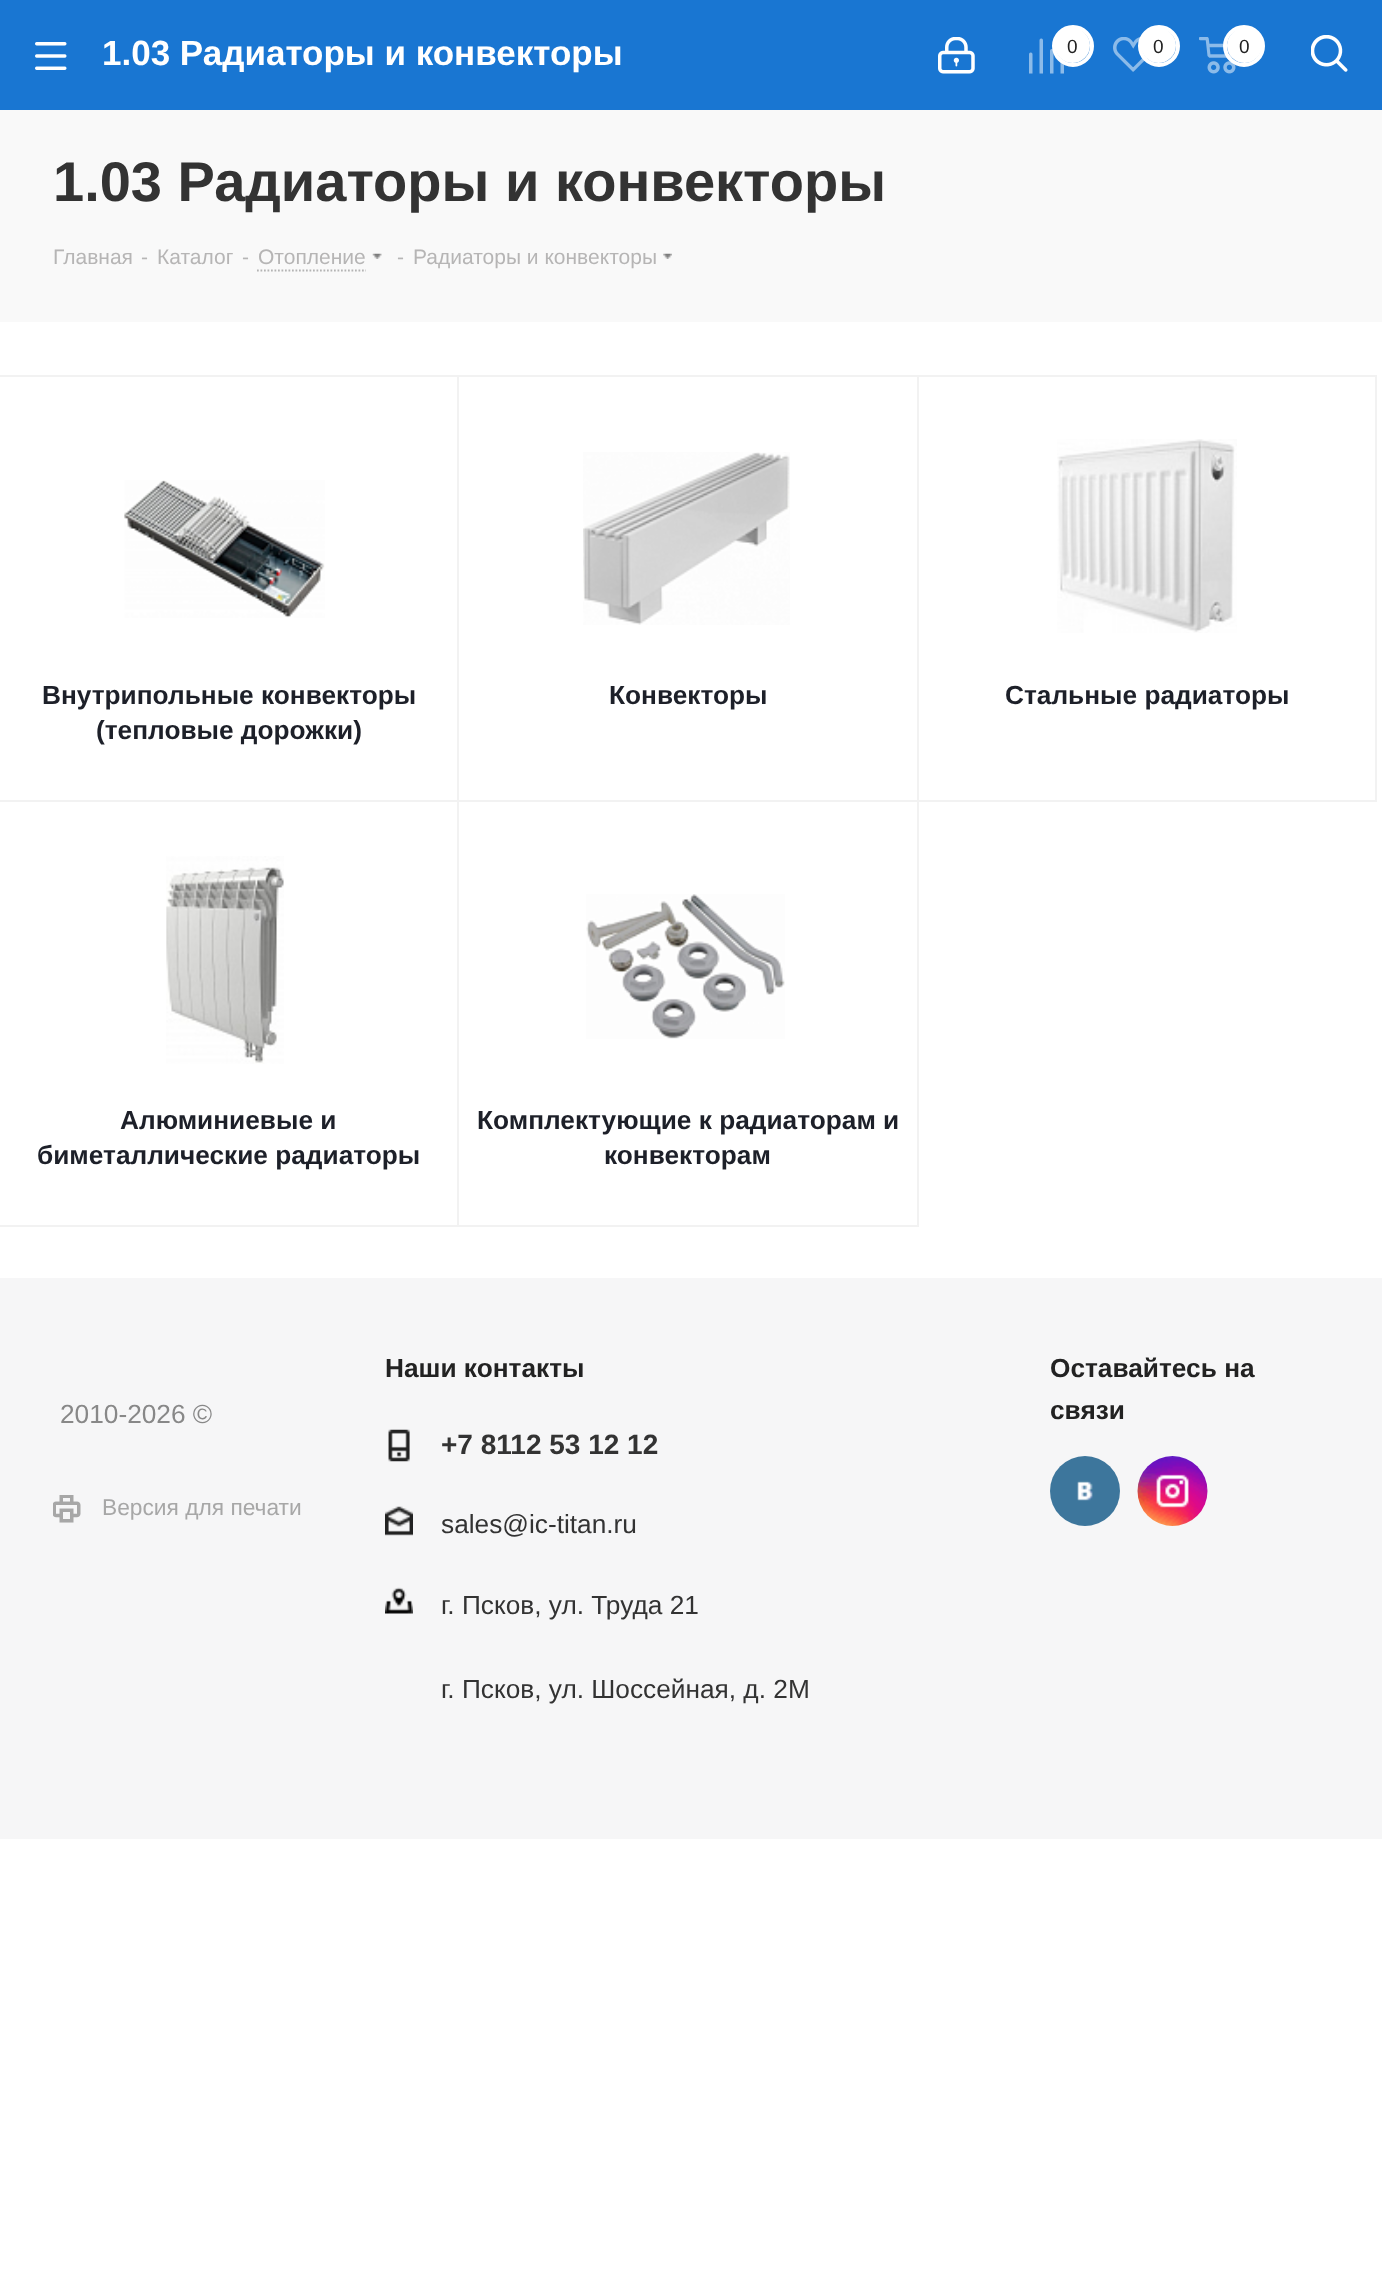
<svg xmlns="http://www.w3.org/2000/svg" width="1382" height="2277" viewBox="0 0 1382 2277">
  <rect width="100%" height="100%" fill="rgb(255,255,255)"/>
  <rect x="0" y="0" width="1382" height="110" fill="rgb(25,118,210)"/>
  <image x="35" y="42" width="32" height="28" href="pic1.png"/>
  <text x="102" y="65" font-family="Liberation Sans" font-size="35" font-weight="bold" fill="rgb(255,255,255)">1.03 Радиаторы и конвекторы</text>
  <image x="938" y="37" width="37" height="37" href="pic2.png"/>
  <image x="1029" y="38" width="35" height="36" href="pic3.png"/>
  <circle cx="1073" cy="46" r="19" fill="none" stroke="rgb(255,255,255)" stroke-width="4"/>
  <circle cx="1072.5" cy="45.5" r="17.5" fill="rgb(255,255,255)"/>
  <text x="1067" y="53" font-family="Liberation Sans" font-size="19" fill="rgb(34,34,34)">0</text>
  <image x="1113" y="37" width="34" height="35" href="pic4.png"/>
  <circle cx="1159" cy="46" r="19" fill="none" stroke="rgb(255,255,255)" stroke-width="4"/>
  <circle cx="1158.5" cy="45.5" r="17.5" fill="rgb(255,255,255)"/>
  <text x="1153" y="53" font-family="Liberation Sans" font-size="19" fill="rgb(34,34,34)">0</text>
  <image x="1199" y="37" width="37" height="37" href="pic5.png"/>
  <circle cx="1244" cy="46" r="19" fill="none" stroke="rgb(255,255,255)" stroke-width="4"/>
  <circle cx="1244.5" cy="45.5" r="17.5" fill="rgb(255,255,255)"/>
  <text x="1239" y="53" font-family="Liberation Sans" font-size="19" fill="rgb(34,34,34)">0</text>
  <image x="1311" y="35" width="37" height="37" href="pic6.png"/>
  <rect x="0" y="110" width="1382" height="212" fill="rgb(249,249,249)"/>
  <text x="53" y="201" font-family="Liberation Sans" font-size="56" font-weight="bold" fill="rgb(51,51,51)">1.03 Радиаторы и конвекторы</text>
  <g font-family="Liberation Sans" font-size="21" fill="rgb(182,181,181)">
    <text x="53" y="264">Главная</text>
    <text x="141" y="264">-</text>
    <text x="157" y="264">Каталог</text>
    <text x="242" y="264">-</text>
    <text x="258" y="264">Отопление</text>
  </g>
  <path d="M257 270.5H366" fill="none" stroke="rgb(180,180,180)" stroke-width="1.8" stroke-dasharray="1.75 1.75"/>
  <image x="372" y="253" width="10" height="6" href="pic7.png"/>
  <g font-family="Liberation Sans" font-size="21" fill="rgb(182,181,181)">
    <text x="397" y="264">-</text>
    <text x="413" y="264">Радиаторы и конвекторы</text>
  </g>
  <image x="663" y="253" width="9" height="6" href="pic8.png"/>
  <rect x="-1" y="376" width="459" height="425" fill="none" stroke="rgb(242,242,242)" stroke-width="2"/>
  <image x="124" y="480" width="201" height="138" href="pic9.png"/>
  <g font-family="Liberation Sans" font-size="26.25" font-weight="bold" fill="rgb(29,32,41)">
    <text x="42" y="704">Внутрипольные конвекторы</text>
    <text x="96" y="739">(тепловые дорожки)</text>
  </g>
  <rect x="458" y="376" width="460" height="425" fill="none" stroke="rgb(242,242,242)" stroke-width="2"/>
  <image x="583" y="452" width="207" height="173" href="pic10.png"/>
  <text x="609" y="704" font-family="Liberation Sans" font-size="26.25" font-weight="bold" fill="rgb(29,32,41)">Конвекторы</text>
  <rect x="918" y="376" width="458" height="425" fill="none" stroke="rgb(242,242,242)" stroke-width="2"/>
  <image x="1057" y="439" width="180" height="194" href="pic11.png"/>
  <text x="1005" y="704" font-family="Liberation Sans" font-size="26.25" font-weight="bold" fill="rgb(29,32,41)">Стальные радиаторы</text>
  <rect x="-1" y="801" width="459" height="425" fill="none" stroke="rgb(242,242,242)" stroke-width="2"/>
  <image x="166" y="856" width="118" height="208" href="pic12.png"/>
  <g font-family="Liberation Sans" font-size="26.25" font-weight="bold" fill="rgb(29,32,41)">
    <text x="120" y="1129">Алюминиевые и</text>
    <text x="37" y="1164">биметаллические радиаторы</text>
  </g>
  <rect x="458" y="801" width="460" height="425" fill="none" stroke="rgb(242,242,242)" stroke-width="2"/>
  <image x="586" y="894" width="199" height="145" href="pic13.png"/>
  <g font-family="Liberation Sans" font-size="26.25" font-weight="bold" fill="rgb(29,32,41)">
    <text x="477" y="1129">Комплектующие к радиаторам и</text>
    <text x="604" y="1164">конвекторам</text>
  </g>
  <rect x="0" y="1278" width="1382" height="561" fill="rgb(246,246,247)"/>
  <text x="60" y="1423" font-family="Liberation Sans" font-size="26.25" fill="rgb(136,136,136)">2010-2026 ©</text>
  <image x="53" y="1495" width="28" height="28" href="pic14.png"/>
  <text x="102" y="1515" font-family="Liberation Sans" font-size="22.75" fill="rgb(167,167,167)">Версия для печати</text>
  <text x="385" y="1377" font-family="Liberation Sans" font-size="26.25" font-weight="bold" fill="rgb(34,34,34)">Наши контакты</text>
  <image x="388" y="1429" width="22" height="33" href="pic15.png"/>
  <text x="441" y="1454" font-family="Liberation Sans" font-size="28" font-weight="bold" fill="rgb(51,51,51)">+7 8112 53 12 12</text>
  <image x="385" y="1506" width="28" height="30" href="pic16.png"/>
  <text x="441" y="1533" font-family="Liberation Sans" font-size="26.25" fill="rgb(51,51,51)">sales@ic-titan.ru</text>
  <image x="385" y="1587" width="28" height="27" href="pic17.png"/>
  <g font-family="Liberation Sans" font-size="26.25" fill="rgb(51,51,51)">
    <text x="441" y="1614">г. Псков, ул. Труда 21</text>
    <text x="441" y="1698">г. Псков, ул. Шоссейная, д. 2М</text>
  </g>
  <g font-family="Liberation Sans" font-size="26.25" font-weight="bold" fill="rgb(34,34,34)">
    <text>
      <tspan x="1050" y="1377">Оставайтесь на</tspan>
      <tspan x="1050" y="1419">связи</tspan>
    </text>
  </g>
  <image x="1050" y="1456" width="70" height="70" href="pic18.png"/>
  <image x="1137" y="1456" width="71" height="70" href="pic19.png"/>
</svg>
